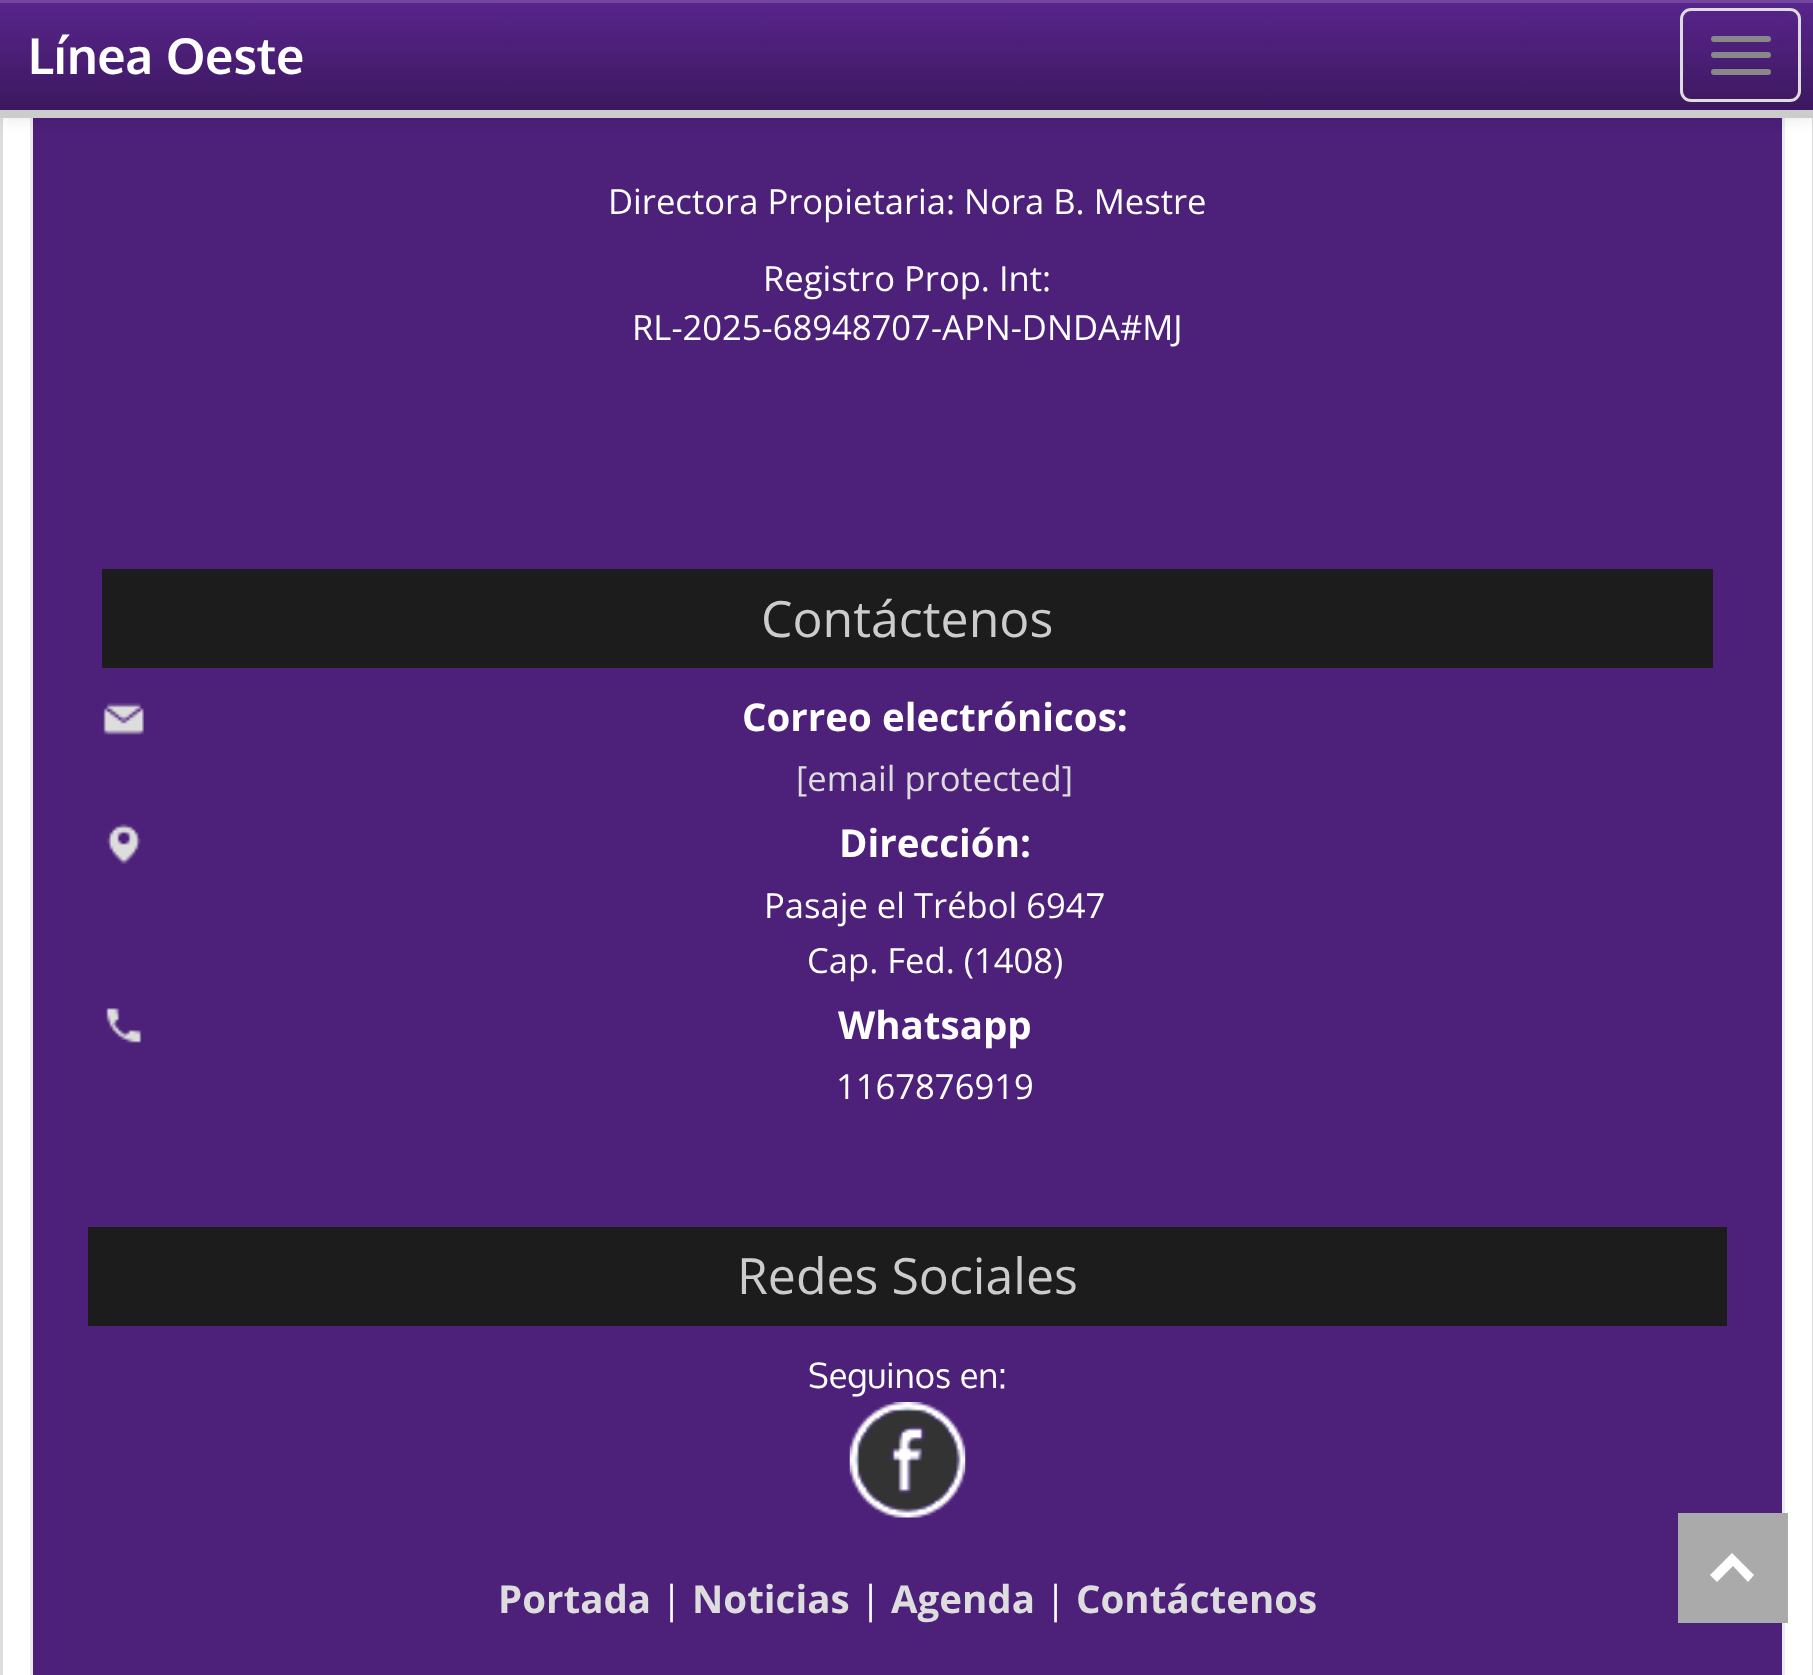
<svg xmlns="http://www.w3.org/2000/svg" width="1813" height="1675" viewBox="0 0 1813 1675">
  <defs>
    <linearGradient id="g1" gradientUnits="userSpaceOnUse" x1="908" y1="0" x2="908" y2="110"><stop offset="0" stop-color="rgb(89,37,141)"/><stop offset="1" stop-color="rgb(60,24,95)"/></linearGradient>
  </defs>
  <rect width="100%" height="100%" fill="rgb(255,255,255)"/>
  <rect x="1812" y="118" width="1" height="1557" fill="rgb(221,221,221)"/>
  <rect x="0" y="118" width="3" height="1557" fill="rgb(221,221,221)"/>
  <rect x="33" y="118" width="1749" height="1557" fill="rgb(77,32,122)"/>
  <rect x="31.5" y="-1.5" width="1752" height="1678" fill="none" stroke="rgb(235,235,235)" stroke-width="3"/>
  <rect x="0" y="3" width="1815" height="118" fill="rgba(0,0,0,0.07)" filter="blur(7px)"/>
  <rect x="0" y="3" width="1813" height="107" fill="url(#g1)"/>
  <rect x="0" y="0" width="1813" height="3" fill="rgb(114,70,158)"/>
  <rect x="0" y="110" width="1813" height="8" fill="rgb(204,204,204)"/>
  <text x="28" y="74" font-family="Oxygen" font-size="49.5" font-weight="bold" fill="rgb(255,255,255)">Línea Oeste</text>
  <rect x="1681.5" y="9.5" width="118" height="91" rx="9.5" fill="none" stroke="rgb(221,221,221)" stroke-width="3"/>
  <rect x="1711" y="36" width="60" height="6" rx="3" fill="rgb(136,136,136)"/>
  <rect x="1711" y="52" width="60" height="6" rx="3" fill="rgb(136,136,136)"/>
  <rect x="1711" y="69" width="60" height="6" rx="3" fill="rgb(136,136,136)"/>
  <g font-family="Open Sans" font-size="34.6" fill="rgb(255,255,255)">
    <text x="608" y="214">Directora Propietaria: Nora B. Mestre</text>
    <text x="763" y="291">Registro Prop. Int:</text>
    <text x="632" y="340">RL-2025-68948707-APN-DNDA#MJ</text>
  </g>
  <rect x="102" y="569" width="1611" height="99" fill="rgb(28,28,28)"/>
  <text x="761" y="637" font-family="Open Sans" font-size="50" fill="rgb(204,204,204)">Contáctenos</text>
  <image x="103" y="702" width="41" height="33" href="pic1.png"/>
  <text x="742" y="731" font-family="Open Sans" font-size="38.5" font-weight="bold" fill="rgb(255,255,255)">Correo electrónicos:</text>
  <text x="796" y="791" font-family="Open Sans" font-size="34.6" fill="rgb(221,221,221)">[email protected]</text>
  <image x="106" y="823" width="35" height="41" href="pic2.png"/>
  <text x="839" y="857" font-family="Open Sans" font-size="38.5" font-weight="bold" fill="rgb(255,255,255)">Dirección:</text>
  <g font-family="Open Sans" font-size="34.6" fill="rgb(255,255,255)">
    <text x="764" y="918">Pasaje el Trébol 6947</text>
    <text x="807" y="973">Cap. Fed. (1408)</text>
  </g>
  <image x="106" y="1008" width="36" height="35" href="pic3.png"/>
  <text x="838" y="1039" font-family="Open Sans" font-size="38.5" font-weight="bold" fill="rgb(255,255,255)">Whatsapp</text>
  <text x="836" y="1099" font-family="Open Sans" font-size="34.6" fill="rgb(255,255,255)">1167876919</text>
  <rect x="88" y="1227" width="1639" height="99" fill="rgb(28,28,28)"/>
  <text x="737" y="1294" font-family="Open Sans" font-size="50" fill="rgb(204,204,204)">Redes Sociales</text>
  <text x="808" y="1388" font-family="Oxygen" font-size="34.6" fill="rgb(255,255,255)">Seguinos en:</text>
  <image x="849" y="1402" width="117" height="116" href="pic4.png"/>
  <text x="498" y="1613" font-family="Open Sans" font-size="38.5" font-weight="bold" fill="rgb(221,221,221)">Portada</text>
  <text x="661" y="1613" font-family="Open Sans" font-size="38.5" fill="rgb(255,255,255)">|</text>
  <text x="692" y="1613" font-family="Open Sans" font-size="38.5" font-weight="bold" fill="rgb(221,221,221)">Noticias</text>
  <text x="860" y="1613" font-family="Open Sans" font-size="38.5" fill="rgb(255,255,255)">|</text>
  <text x="891" y="1613" font-family="Open Sans" font-size="38.5" font-weight="bold" fill="rgb(221,221,221)">Agenda</text>
  <text x="1045" y="1613" font-family="Open Sans" font-size="38.5" fill="rgb(255,255,255)">|</text>
  <text x="1076" y="1613" font-family="Open Sans" font-size="38.5" font-weight="bold" fill="rgb(221,221,221)">Contáctenos</text>
  <rect x="1678" y="1513" width="110" height="110" fill="rgb(170,170,170)"/>
  <path d="M1732 1553L1754 1575L1748 1582L1733 1566L1717 1582L1710 1575Z" fill="rgb(255,255,255)"/>
</svg>
